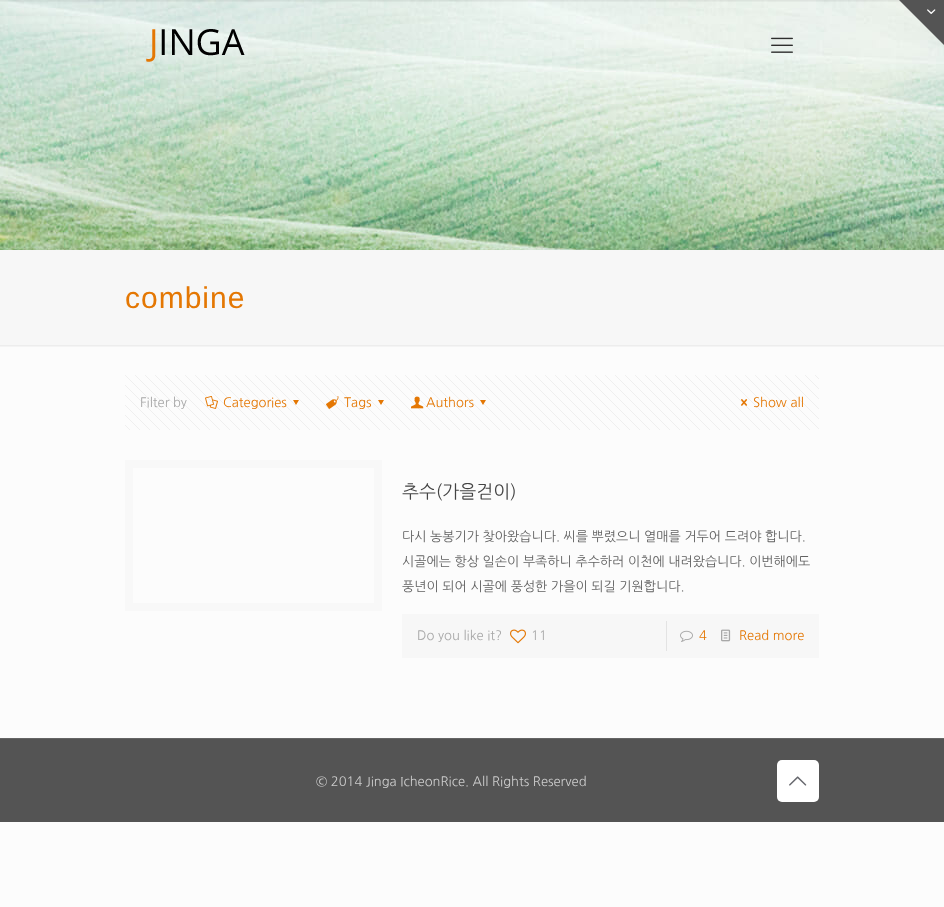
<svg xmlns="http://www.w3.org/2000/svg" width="944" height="907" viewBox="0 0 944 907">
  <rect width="100%" height="100%" fill="rgb(252,252,252)"/>
  <image x="0" y="0" width="944" height="250" href="pic3.png"/>
  <image x="0" y="0" width="901" height="2" href="pic1.png"/>
  <path d="M944 0V45L899 0Z" fill="rgb(84,84,84)"/>
  <image x="927" y="9" width="9" height="5" href="pic2.png"/>
  <image x="146" y="29" width="99" height="33" href="pic4.png"/>
  <image x="771" y="37" width="22" height="16" href="pic5.png"/>
  <rect x="0" y="250" width="944" height="95" fill="rgb(247,247,247)"/>
  <text x="125" y="308" font-family="Liberation Sans" font-size="30" letter-spacing="1" fill="rgb(228,119,3)">combine</text>
  <image x="0" y="345" width="944" height="2" href="pic6.png"/>
  <image x="125" y="375" width="694" height="55" href="pic7.png"/>
  <text x="140" y="407" font-family="NanumGothic" font-size="13" fill="rgb(168,168,168)">Filter by</text>
  <image x="205" y="396" width="13" height="13" href="pic8.png"/>
  <text x="223" y="407" font-family="NanumGothic" font-size="13" fill="rgb(228,119,3)">Categories</text>
  <path d="M299 400L296 405L293 400Z" fill="rgb(228,119,3)"/>
  <image x="326" y="396" width="13" height="13" href="pic9.png"/>
  <text x="344" y="407" font-family="NanumGothic" font-size="13" fill="rgb(228,119,3)">Tags</text>
  <path d="M384 400L381 405L378 400Z" fill="rgb(228,119,3)"/>
  <image x="411" y="396" width="13" height="13" href="pic10.png"/>
  <text x="426" y="407" font-family="NanumGothic" font-size="13" fill="rgb(228,119,3)">Authors</text>
  <path d="M486 400L483 405L480 400Z" fill="rgb(228,119,3)"/>
  <image x="741" y="399" width="7" height="7" href="pic11.png"/>
  <text x="753" y="407" font-family="NanumGothic" font-size="13" fill="rgb(228,119,3)">Show all</text>
  <rect x="129" y="464" width="249" height="143" fill="none" stroke="rgb(248,248,248)" stroke-width="8"/>
  <text x="402" y="498" font-family="NanumGothic" font-size="18" fill="rgb(68,68,68)">추수(가을걷이)</text>
  <g font-family="NanumGothic" font-size="13" fill="rgb(98,98,98)">
    <text>
      <tspan x="402" y="541">다시 농봉기가 찾아왔습니다. 씨를 뿌렸으니 열매를 거두어 드려야 합니다.</tspan>
      <tspan x="402" y="566">시골에는 항상 일손이 부족하니 추수하러 이천에 내려왔습니다. 이번해에도</tspan>
      <tspan x="402" y="591">풍년이 되어 시골에 풍성한 가을이 되길 기원합니다.</tspan>
    </text>
  </g>
  <rect x="402" y="614" width="417" height="44" fill="rgb(247,247,247)"/>
  <text x="417" y="640" font-family="NanumGothic" font-size="13" fill="rgb(168,168,168)">Do you like it?</text>
  <image x="510" y="629" width="16" height="15" href="pic12.png"/>
  <text x="531" y="640" font-family="NanumGothic" font-size="13" fill="rgb(168,168,168)">11</text>
  <rect x="666" y="621" width="1" height="30" fill="rgb(227,227,227)"/>
  <image x="680" y="630" width="13" height="12" href="pic13.png"/>
  <text x="699" y="640" font-family="NanumGothic" font-size="13" fill="rgb(228,119,3)">4</text>
  <image x="721" y="629" width="10" height="13" href="pic14.png"/>
  <text x="739" y="640" font-family="NanumGothic" font-size="13" fill="rgb(228,119,3)">Read more</text>
  <rect x="0" y="739" width="944" height="83" fill="rgb(84,84,84)"/>
  <rect x="0" y="738" width="944" height="1" fill="rgb(101,101,101)"/>
  <text x="316" y="786" font-family="NanumGothic" font-size="13" fill="rgb(204,204,204)">© 2014 Jinga IcheonRice. All Rights Reserved</text>
  <rect x="777" y="760" width="42" height="42" rx="5" fill="rgb(255,255,255)"/>
  <image x="789" y="776" width="18" height="10" href="pic15.png"/>
</svg>
